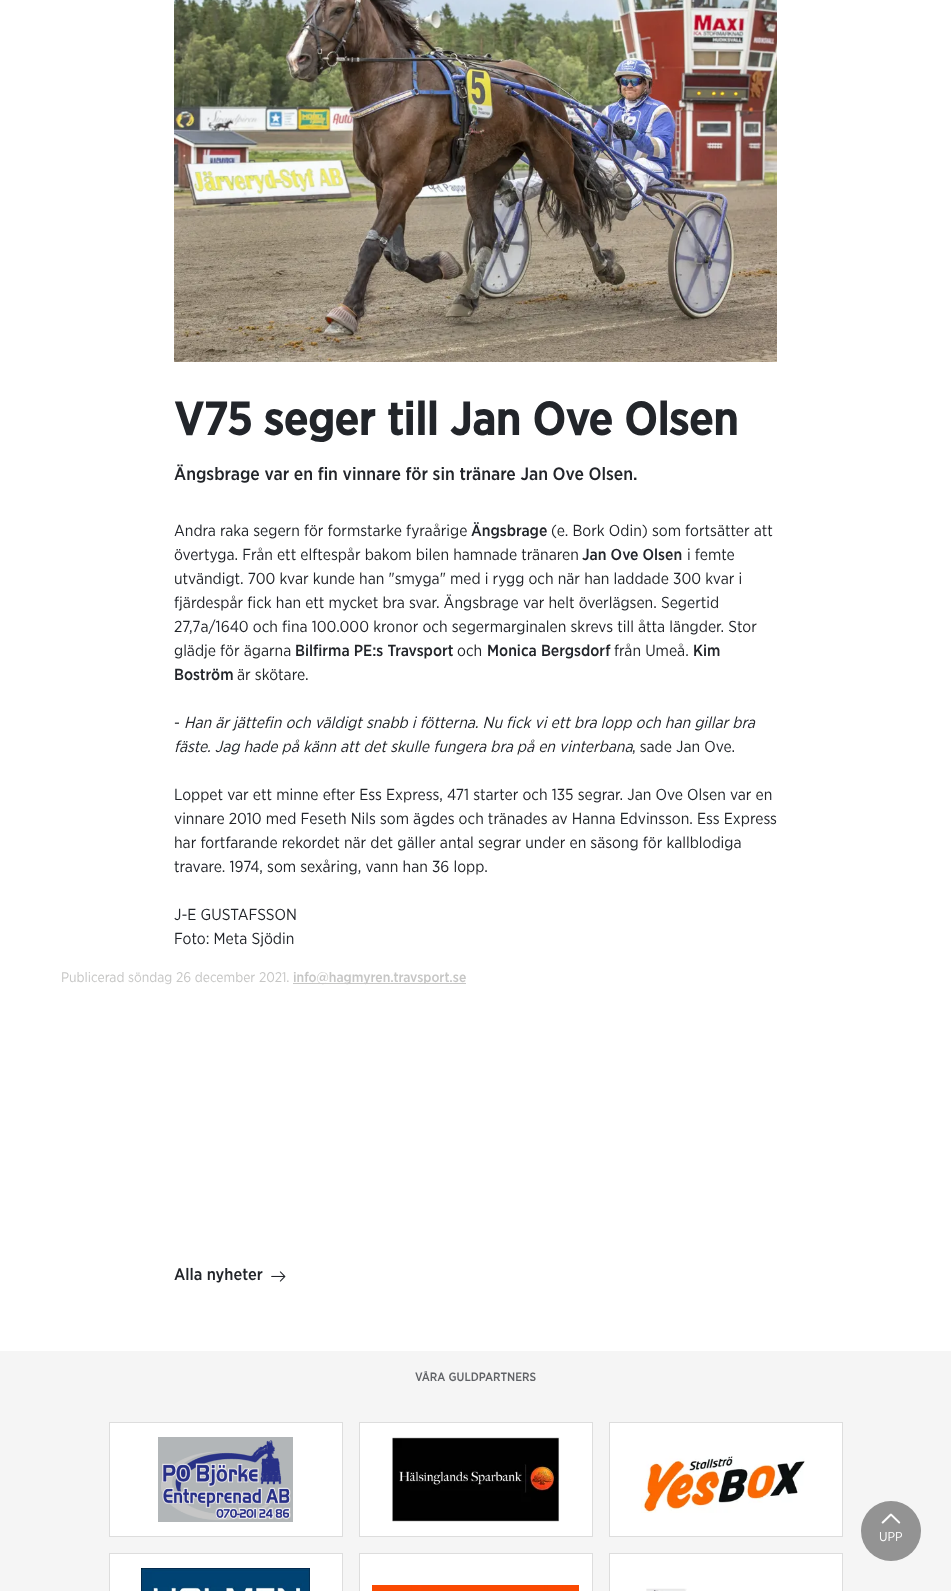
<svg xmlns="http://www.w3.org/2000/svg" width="951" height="1591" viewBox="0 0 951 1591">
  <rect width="100%" height="100%" fill="rgb(255,255,255)"/>
  <image x="174" y="0" width="603" height="362" href="pic1.png"/>
  <text x="174" y="435" font-family="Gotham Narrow" font-size="46" font-weight="bold" fill="rgb(34,37,42)">V75 seger till Jan Ove Olsen</text>
  <text x="174" y="480" font-family="Gotham Narrow" font-size="18" font-weight="500" fill="rgb(34,37,42)">Ängsbrage var en fin vinnare för sin tränare Jan Ove Olsen.</text>
  <text x="174" y="536" font-family="Gotham Narrow" font-size="16" fill="rgb(34,37,42)">Andra raka segern för formstarke fyraårige</text>
  <text x="471" y="536" font-family="Gotham Narrow" font-size="16" font-weight="500" fill="rgb(34,37,42)">Ängsbrage</text>
  <g font-family="Gotham Narrow" font-size="16" fill="rgb(34,37,42)">
    <text x="551" y="536">(e. Bork Odin) som fortsätter att</text>
    <text x="174" y="560">övertyga. Från ett elftespår bakom bilen hamnade tränaren</text>
  </g>
  <text x="582" y="560" font-family="Gotham Narrow" font-size="16" font-weight="500" fill="rgb(34,37,42)">Jan Ove Olsen</text>
  <g font-family="Gotham Narrow" font-size="16" fill="rgb(34,37,42)">
    <text x="687" y="560">i femte</text>
    <text>
      <tspan x="174" y="584">utvändigt. 700 kvar kunde han "smyga" med i rygg och när han laddade 300 kvar i</tspan>
      <tspan x="174" y="608">fjärdespår fick han ett mycket bra svar. Ängsbrage var helt överlägsen. Segertid</tspan>
      <tspan x="174" y="632">27,7a/1640 och fina 100.000 kronor och segermarginalen skrevs till åtta längder. Stor</tspan>
      <tspan x="174" y="656">glädje för ägarna</tspan>
    </text>
  </g>
  <text x="295" y="656" font-family="Gotham Narrow" font-size="16" font-weight="500" fill="rgb(34,37,42)">Bilfirma PE:s Travsport</text>
  <text x="457" y="656" font-family="Gotham Narrow" font-size="16" fill="rgb(34,37,42)">och</text>
  <text x="487" y="656" font-family="Gotham Narrow" font-size="16" font-weight="500" fill="rgb(34,37,42)">Monica Bergsdorf</text>
  <text x="614" y="656" font-family="Gotham Narrow" font-size="16" fill="rgb(34,37,42)">från Umeå.</text>
  <g font-family="Gotham Narrow" font-size="16" font-weight="500" fill="rgb(34,37,42)">
    <text x="693" y="656">Kim</text>
    <text x="174" y="680">Boström</text>
  </g>
  <g font-family="Gotham Narrow" font-size="16" fill="rgb(34,37,42)">
    <text x="237" y="680">är skötare.</text>
    <text x="174" y="728">-</text>
  </g>
  <g font-family="Gotham Narrow" font-size="16" font-style="italic" fill="rgb(34,37,42)">
    <text x="184" y="728">Han är jättefin och väldigt snabb i fötterna. Nu fick vi ett bra lopp och han gillar bra</text>
    <text x="174" y="752">fäste. Jag hade på känn att det skulle fungera bra på en vinterbana</text>
  </g>
  <g font-family="Gotham Narrow" font-size="16" fill="rgb(34,37,42)">
    <text x="632" y="752">, sade Jan Ove.</text>
    <text>
      <tspan x="174" y="800">Loppet var ett minne efter Ess Express, 471 starter och 135 segrar. Jan Ove Olsen var en</tspan>
      <tspan x="174" y="824">vinnare 2010 med Feseth Nils som ägdes och tränades av Hanna Edvinsson. Ess Express</tspan>
      <tspan x="174" y="848">har fortfarande rekordet när det gäller antal segrar under en säsong för kallblodiga</tspan>
      <tspan x="174" y="872">travare. 1974, som sexåring, vann han 36 lopp.</tspan>
    </text>
    <text>
      <tspan x="174" y="920">J-E GUSTAFSSON</tspan>
      <tspan x="174" y="944">Foto: Meta Sjödin</tspan>
    </text>
  </g>
  <text x="61" y="982" font-family="Gotham Narrow" font-size="14" fill="rgb(198,198,197)">Publicerad söndag 26 december 2021.</text>
  <rect x="293" y="983" width="173" height="1" fill="rgb(198,198,197)"/>
  <text x="293" y="982" font-family="Gotham Narrow" font-size="14" font-weight="500" fill="rgb(198,198,197)">info@hagmyren.travsport.se</text>
  <text x="174" y="1280" font-family="Gotham Narrow" font-size="16.75" font-weight="500" fill="rgb(34,37,42)">Alla nyheter</text>
  <image x="271" y="1271" width="15" height="11" href="pic2.png"/>
  <rect x="0" y="1351" width="951" height="240" fill="rgb(245,245,245)"/>
  <text x="415" y="1381" font-family="Gotham Narrow" font-size="12" font-weight="500" fill="rgb(97,99,103)">VÅRA GULDPARTNERS</text>
  <rect x="109.5" y="1422.5" width="233" height="114" fill="rgb(255,255,255)" stroke="rgb(221,221,221)"/>
  <image x="158" y="1437" width="135" height="85" href="pic3.png"/>
  <rect x="359.5" y="1422.5" width="233" height="114" fill="rgb(255,255,255)" stroke="rgb(221,221,221)"/>
  <image x="392" y="1437" width="168" height="85" href="pic4.png"/>
  <rect x="609.5" y="1422.5" width="233" height="114" fill="rgb(255,255,255)" stroke="rgb(221,221,221)"/>
  <image x="641" y="1456" width="164" height="57" href="pic5.png"/>
  <rect x="109.5" y="1553.5" width="233" height="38" fill="rgb(255,255,255)" stroke="rgb(221,221,221)"/>
  <image x="141" y="1568" width="169" height="23" href="pic6.png"/>
  <rect x="359.5" y="1553.5" width="233" height="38" fill="rgb(255,255,255)" stroke="rgb(221,221,221)"/>
  <image x="372" y="1585" width="207" height="6" href="pic7.png"/>
  <rect x="609.5" y="1553.5" width="233" height="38" fill="rgb(255,255,255)" stroke="rgb(221,221,221)"/>
  <image x="646" y="1588" width="41" height="3" href="pic8.png"/>
  <circle cx="891" cy="1531" r="30" fill="rgb(147,147,147)"/>
  <image x="881" y="1513" width="20" height="11" href="pic9.png"/>
  <text x="879" y="1541" font-family="Gotham Narrow" font-size="13" fill="rgb(255,255,255)">UPP</text>
</svg>
